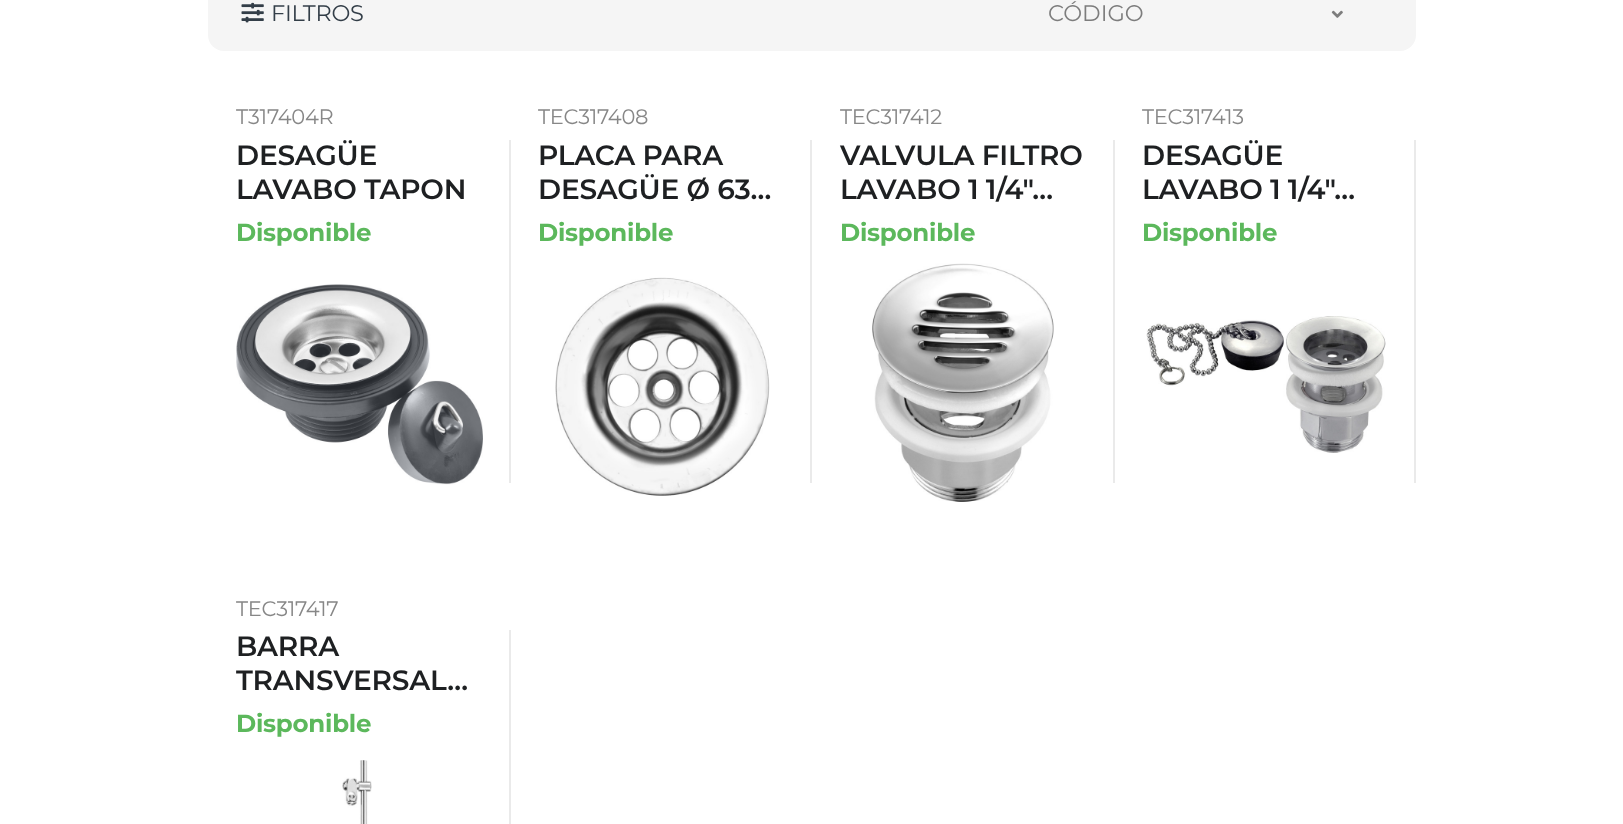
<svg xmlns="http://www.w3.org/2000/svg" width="1623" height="824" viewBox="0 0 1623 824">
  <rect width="100%" height="100%" fill="rgb(255,255,255)"/>
  <rect x="208" y="-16" width="1208" height="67" rx="16" fill="rgb(245,245,245)"/>
  <image x="241" y="2" width="23" height="21" href="pic1.png"/>
  <text x="271" y="21" font-family="Montserrat" font-size="22.5" letter-spacing="-0.25" fill="rgb(51,62,72)">FILTROS</text>
  <text x="1048" y="21" font-family="Montserrat" font-size="22.5" fill="rgb(125,125,125)">CÓDIGO</text>
  <image x="1331" y="10" width="12" height="8" href="pic2.png"/>
  <text x="236" y="124" font-family="Montserrat" font-size="21" letter-spacing="-0.25" fill="rgb(135,135,135)">T317404R</text>
  <g font-family="Montserrat" font-size="28" font-weight="600" letter-spacing="-0.25" fill="rgb(30,32,34)">
    <text>
      <tspan x="236" y="165">DESAGÜE</tspan>
      <tspan x="236" y="199">LAVABO TAPON</tspan>
    </text>
  </g>
  <text x="236" y="241" font-family="Montserrat" font-size="24.5" font-weight="bold" letter-spacing="-0.25" fill="rgb(92,184,92)">Disponible</text>
  <image x="236" y="284" width="247" height="201" href="pic3.png"/>
  <rect x="509" y="140" width="2" height="343" fill="rgb(234,234,234)"/>
  <text x="538" y="124" font-family="Montserrat" font-size="21" letter-spacing="-0.25" fill="rgb(135,135,135)">TEC317408</text>
  <g font-family="Montserrat" font-size="28" font-weight="600" letter-spacing="-0.25" fill="rgb(30,32,34)">
    <text>
      <tspan x="538" y="165">PLACA PARA</tspan>
      <tspan x="538" y="199">DESAGÜE Ø 63…</tspan>
    </text>
  </g>
  <text x="538" y="241" font-family="Montserrat" font-size="24.5" font-weight="bold" letter-spacing="-0.25" fill="rgb(92,184,92)">Disponible</text>
  <image x="555" y="277" width="215" height="219" href="pic4.png"/>
  <rect x="810" y="140" width="2" height="343" fill="rgb(234,234,234)"/>
  <text x="840" y="124" font-family="Montserrat" font-size="21" letter-spacing="-0.25" fill="rgb(135,135,135)">TEC317412</text>
  <g font-family="Montserrat" font-size="28" font-weight="600" letter-spacing="-0.25" fill="rgb(30,32,34)">
    <text>
      <tspan x="840" y="165">VALVULA FILTRO</tspan>
      <tspan x="840" y="199">LAVABO 1 1/4"…</tspan>
    </text>
  </g>
  <text x="840" y="241" font-family="Montserrat" font-size="24.5" font-weight="bold" letter-spacing="-0.25" fill="rgb(92,184,92)">Disponible</text>
  <image x="872" y="263" width="182" height="239" href="pic5.png"/>
  <rect x="1113" y="140" width="2" height="343" fill="rgb(234,234,234)"/>
  <text x="1142" y="124" font-family="Montserrat" font-size="21" letter-spacing="-0.25" fill="rgb(135,135,135)">TEC317413</text>
  <g font-family="Montserrat" font-size="28" font-weight="600" letter-spacing="-0.25" fill="rgb(30,32,34)">
    <text>
      <tspan x="1142" y="165">DESAGÜE</tspan>
      <tspan x="1142" y="199">LAVABO 1 1/4"…</tspan>
    </text>
  </g>
  <text x="1142" y="241" font-family="Montserrat" font-size="24.5" font-weight="bold" letter-spacing="-0.25" fill="rgb(92,184,92)">Disponible</text>
  <image x="1146" y="316" width="240" height="137" href="pic6.png"/>
  <rect x="1414" y="140" width="2" height="343" fill="rgb(234,234,234)"/>
  <text x="236" y="616" font-family="Montserrat" font-size="21" letter-spacing="-0.25" fill="rgb(135,135,135)">TEC317417</text>
  <g font-family="Montserrat" font-size="28" font-weight="600" letter-spacing="-0.25" fill="rgb(30,32,34)">
    <text>
      <tspan x="236" y="656">BARRA</tspan>
      <tspan x="236" y="690">TRANSVERSAL…</tspan>
    </text>
  </g>
  <text x="236" y="732" font-family="Montserrat" font-size="24.5" font-weight="bold" letter-spacing="-0.25" fill="rgb(92,184,92)">Disponible</text>
  <image x="342" y="760" width="30" height="64" href="pic7.png"/>
  <rect x="509" y="630" width="2" height="194" fill="rgb(234,234,234)"/>
</svg>
